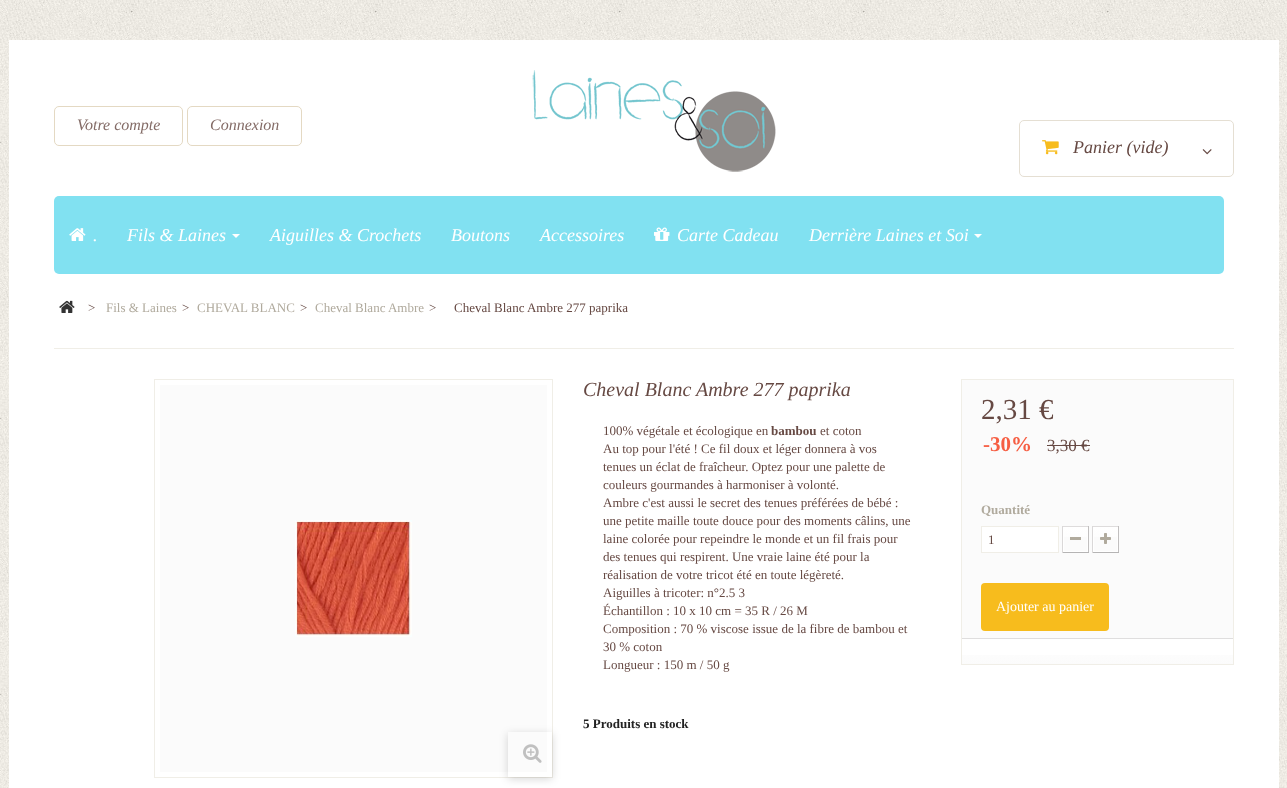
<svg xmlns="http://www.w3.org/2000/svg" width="1287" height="788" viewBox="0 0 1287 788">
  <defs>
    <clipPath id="clip1"><path d="M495 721H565V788H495ZM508 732H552V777H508Z" clip-rule="evenodd"/></clipPath>
    <linearGradient id="g1" gradientUnits="userSpaceOnUse" x1="1076" y1="528" x2="1076" y2="551"><stop offset="0" stop-color="rgb(255,255,255)"/><stop offset="1" stop-color="rgb(251,251,251)"/></linearGradient>
    <linearGradient id="g2" gradientUnits="userSpaceOnUse" x1="1106" y1="528" x2="1106" y2="551"><stop offset="0" stop-color="rgb(255,255,255)"/><stop offset="1" stop-color="rgb(251,251,251)"/></linearGradient>
    <linearGradient id="g3" gradientUnits="userSpaceOnUse" x1="1098" y1="639" x2="1098" y2="664"><stop offset="0" stop-color="rgb(255,255,255)"/><stop offset="1" stop-color="rgb(251,251,251)"/></linearGradient>
  </defs>
  <rect width="100%" height="100%" fill="rgb(255,255,255)"/>
  <image x="0" y="0" width="1287" height="788" href="pic1.png"/>
  <rect x="9" y="40" width="1270" height="748" fill="rgb(255,255,255)"/>
  <image x="532" y="70" width="244" height="102" href="pic2.png"/>
  <rect x="54.5" y="106.5" width="128" height="39" rx="4.5" fill="none" stroke="rgb(228,217,195)"/>
  <text x="77" y="130" font-family="Liberation Serif" font-size="16" font-style="italic" fill="rgb(131,107,102)">Votre compte</text>
  <rect x="187.5" y="106.5" width="114" height="39" rx="4.5" fill="none" stroke="rgb(228,217,195)"/>
  <text x="210" y="130" font-family="Liberation Serif" font-size="16" font-style="italic" fill="rgb(131,107,102)">Connexion</text>
  <rect x="1019.5" y="120.5" width="214" height="56" rx="4.5" fill="none" stroke="rgb(229,223,211)"/>
  <image x="1042" y="140" width="17" height="15" href="pic3.png"/>
  <text x="1073" y="153" font-family="Liberation Serif" font-size="18" font-style="italic" fill="rgb(102,73,67)">Panier (vide)</text>
  <image x="1202" y="149" width="10" height="6" href="pic4.png"/>
  <rect x="54" y="196" width="1170" height="78" rx="5" fill="rgb(129,225,241)"/>
  <image x="69" y="228" width="17" height="13" href="pic5.png"/>
  <g font-family="Liberation Serif" font-size="18" font-style="italic" fill="rgb(255,255,255)">
    <text x="93" y="241">.</text>
    <text x="127" y="241">Fils &amp; Laines</text>
  </g>
  <path d="M232 234H240L236 238Z" fill="rgb(255,255,255)"/>
  <g font-family="Liberation Serif" font-size="18" font-style="italic" fill="rgb(255,255,255)">
    <text x="270" y="241">Aiguilles &amp; Crochets</text>
    <text x="451" y="241">Boutons</text>
    <text x="540" y="241">Accessoires</text>
  </g>
  <image x="654" y="227" width="16" height="14" href="pic6.png"/>
  <g font-family="Liberation Serif" font-size="18" font-style="italic" fill="rgb(255,255,255)">
    <text x="677" y="241">Carte Cadeau</text>
    <text x="809" y="241">Derrière Laines et Soi</text>
  </g>
  <path d="M974 234H982L978 238Z" fill="rgb(255,255,255)"/>
  <image x="59" y="300" width="16" height="13" href="pic7.png"/>
  <text x="88" y="312" font-family="Liberation Serif" font-size="13" fill="rgb(102,73,67)">&gt;</text>
  <text x="106" y="312" font-family="Liberation Serif" font-size="13" fill="rgb(176,170,157)">Fils &amp; Laines</text>
  <text x="182" y="312" font-family="Liberation Serif" font-size="13" fill="rgb(102,73,67)">&gt;</text>
  <text x="197" y="312" font-family="Liberation Serif" font-size="13" fill="rgb(176,170,157)">CHEVAL BLANC</text>
  <text x="300" y="312" font-family="Liberation Serif" font-size="13" fill="rgb(102,73,67)">&gt;</text>
  <text x="315" y="312" font-family="Liberation Serif" font-size="13" fill="rgb(176,170,157)">Cheval Blanc Ambre</text>
  <g font-family="Liberation Serif" font-size="13" fill="rgb(102,73,67)">
    <text x="429" y="312">&gt;</text>
    <text x="454" y="312">Cheval Blanc Ambre 277 paprika</text>
  </g>
  <rect x="54" y="348" width="1180" height="1" fill="rgb(240,238,231)"/>
  <rect x="154.5" y="379.5" width="398" height="398" fill="none" stroke="rgb(240,238,231)"/>
  <rect x="160" y="385" width="387" height="387" fill="rgb(251,251,251)"/>
  <image x="295" y="520" width="117" height="117" href="pic8.png"/>
  <g clip-path="url(#clip1)">
    <rect x="508" y="734" width="44" height="45" fill="rgba(0,0,0,0.16)" filter="blur(4px)"/>
  </g>
  <image x="523" y="744" width="19" height="19" href="pic9.png"/>
  <text x="583" y="396" font-family="Liberation Serif" font-size="20" font-style="italic" fill="rgb(102,73,67)">Cheval Blanc Ambre 277 paprika</text>
  <text x="603" y="435" font-family="Liberation Serif" font-size="13" fill="rgb(102,73,67)">100% végétale et écologique en</text>
  <text x="771" y="435" font-family="Liberation Serif" font-size="13" font-weight="bold" fill="rgb(102,73,67)">bambou</text>
  <g font-family="Liberation Serif" font-size="13" fill="rgb(102,73,67)">
    <text x="820" y="435">et coton</text>
    <text>
      <tspan x="603" y="453">Au top pour l'été ! Ce fil doux et léger donnera à vos</tspan>
      <tspan x="603" y="471">tenues un éclat de fraîcheur. Optez pour une palette de</tspan>
      <tspan x="603" y="489">couleurs gourmandes à harmoniser à volonté.</tspan>
      <tspan x="603" y="507">Ambre c'est aussi le secret des tenues préférées de bébé :</tspan>
      <tspan x="603" y="525">une petite maille toute douce pour des moments câlins, une</tspan>
      <tspan x="603" y="543">laine colorée pour repeindre le monde et un fil frais pour</tspan>
      <tspan x="603" y="561">des tenues qui respirent. Une vraie laine été pour la</tspan>
      <tspan x="603" y="579">réalisation de votre tricot été en toute légèreté.</tspan>
      <tspan x="603" y="597">Aiguilles à tricoter: n°2.5 3</tspan>
      <tspan x="603" y="615">Échantillon : 10 x 10 cm = 35 R / 26 M</tspan>
      <tspan x="603" y="633">Composition : 70 % viscose issue de la fibre de bambou et</tspan>
      <tspan x="603" y="651">30 % coton</tspan>
      <tspan x="603" y="669">Longueur : 150 m / 50 g</tspan>
    </text>
  </g>
  <text x="583" y="728" font-family="Liberation Serif" font-size="13" font-weight="bold" fill="rgb(34,34,34)">5 Produits en stock</text>
  <rect x="962" y="380" width="271" height="258" fill="rgb(251,251,251)"/>
  <rect x="961.5" y="379.5" width="272" height="285" fill="none" stroke="rgb(240,238,231)"/>
  <text x="981" y="419" font-family="Liberation Serif" font-size="29" fill="rgb(102,73,67)">2,31 €</text>
  <text x="983" y="451" font-family="Liberation Serif" font-size="21" font-weight="bold" fill="rgb(246,94,67)">-30%</text>
  <text x="1047" y="451" font-family="Liberation Serif" font-size="17" fill="rgb(102,73,67)">3,30 €</text>
  <rect x="1047" y="445" width="43" height="1" fill="rgb(102,73,67)"/>
  <text x="981" y="514" font-family="Liberation Serif" font-size="13" font-weight="bold" fill="rgb(176,170,157)">Quantité</text>
  <rect x="981.5" y="526.5" width="77" height="26" fill="rgb(255,255,255)" stroke="rgb(240,238,231)"/>
  <text x="988" y="544" font-family="Liberation Serif" font-size="13" fill="rgb(102,73,67)">1</text>
  <rect x="1062" y="526" width="27" height="1" fill="rgb(222,220,220)"/>
  <rect x="1088" y="526" width="1" height="27" fill="rgb(193,191,191)"/>
  <rect x="1062" y="552" width="27" height="1" fill="rgb(181,180,180)"/>
  <rect x="1062" y="526" width="1" height="27" fill="rgb(218,216,216)"/>
  <rect x="1064" y="528" width="23" height="9" fill="url(#g1)"/>
  <rect x="1063.5" y="527.5" width="24" height="24" fill="none" stroke="rgb(255,255,255)"/>
  <rect x="1070" y="537" width="11" height="3" fill="rgb(176,170,157)"/>
  <rect x="1092" y="526" width="27" height="1" fill="rgb(222,220,220)"/>
  <rect x="1118" y="526" width="1" height="27" fill="rgb(193,191,191)"/>
  <rect x="1092" y="552" width="27" height="1" fill="rgb(181,180,180)"/>
  <rect x="1092" y="526" width="1" height="27" fill="rgb(218,216,216)"/>
  <rect x="1094" y="528" width="23" height="9" fill="url(#g2)"/>
  <rect x="1093.5" y="527.5" width="24" height="24" fill="none" stroke="rgb(255,255,255)"/>
  <image x="1100" y="533" width="11" height="11" href="pic10.png"/>
  <rect x="981" y="583" width="128" height="48" rx="4" fill="rgb(247,188,29)"/>
  <text x="996" y="611" font-family="Liberation Serif" font-size="14" fill="rgb(255,255,255)">Ajouter au panier</text>
  <rect x="962" y="655" width="271" height="9" fill="url(#g3)"/>
  <rect x="962" y="638" width="271" height="1" fill="rgb(223,222,222)"/>
</svg>
